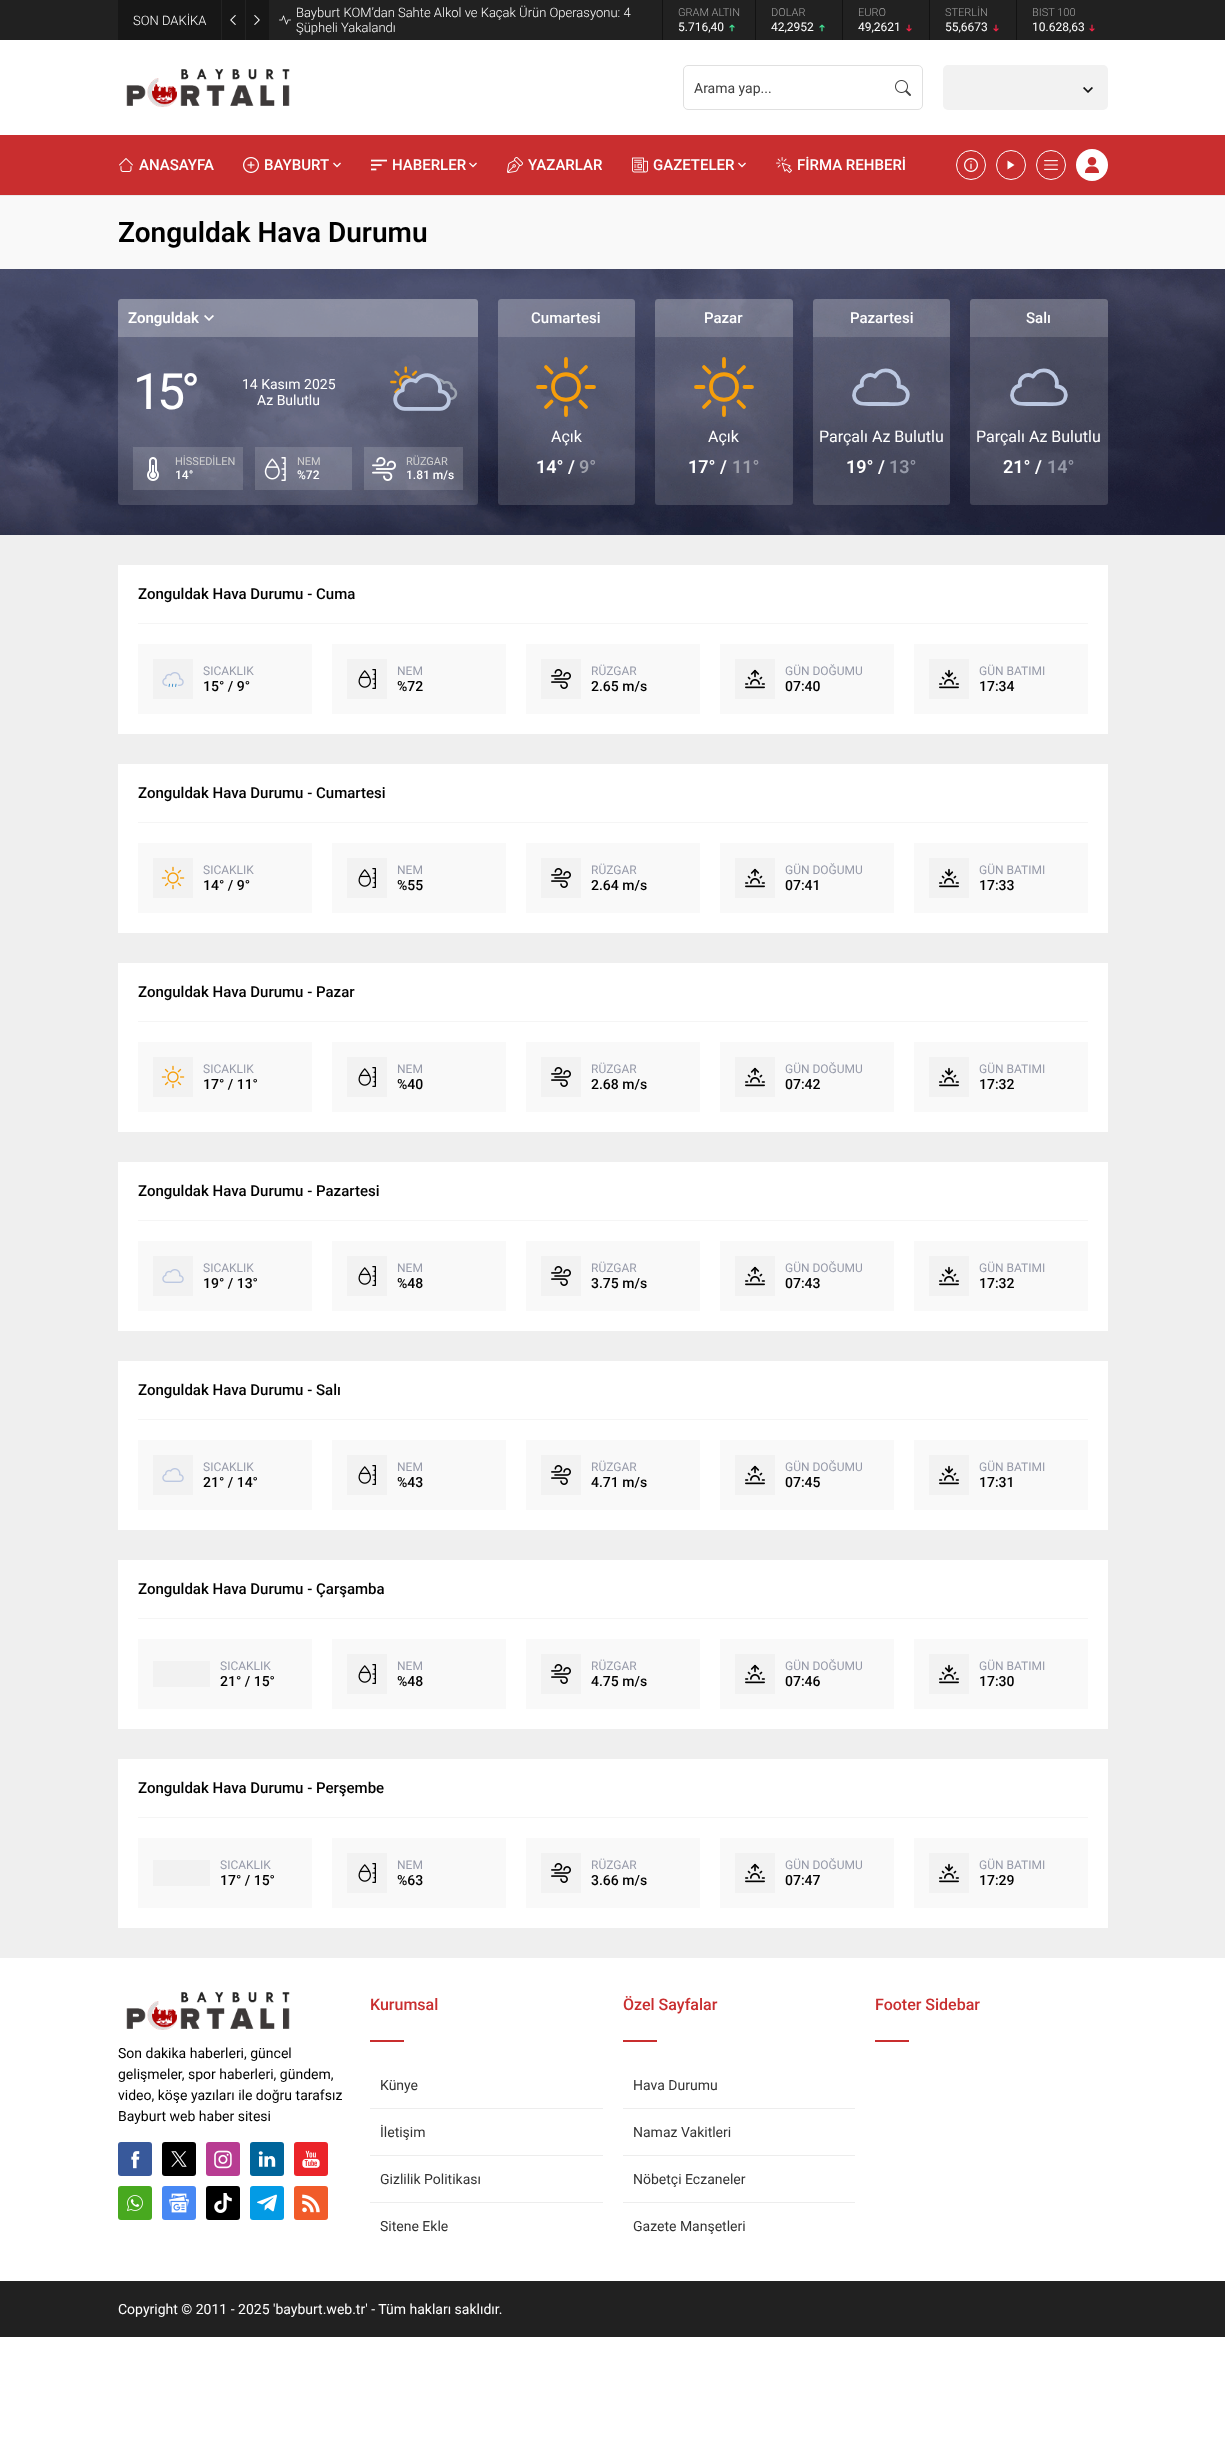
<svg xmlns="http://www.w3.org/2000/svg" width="1225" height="2450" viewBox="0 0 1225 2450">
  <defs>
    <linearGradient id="g1" gradientUnits="userSpaceOnUse" x1="1093" y1="20" x2="1108" y2="20"><stop offset="0" stop-color="rgb(33,33,33)" stop-opacity="0"/><stop offset="1" stop-color="rgb(33,33,33)"/></linearGradient>
  </defs>
  <rect width="100%" height="100%" fill="rgb(255,255,255)"/>
  <rect x="0" y="535" width="1225" height="1423" fill="rgb(239,239,239)"/>
  <rect x="0" y="195" width="1225" height="1" fill="rgb(234,234,234)"/>
  <rect x="0" y="0" width="1225" height="40" fill="rgb(33,33,33)"/>
  <rect x="118" y="0" width="151" height="40" fill="rgb(23,23,23)"/>
  <text x="133" y="25" font-family="Roboto" font-size="13" font-weight="300" fill="rgb(255,255,255)">SON DAKİKA</text>
  <rect x="221" y="0" width="1" height="40" fill="rgb(35,35,35)"/>
  <image x="230" y="15" width="6" height="10" href="pic1.png"/>
  <rect x="245" y="0" width="1" height="40" fill="rgb(35,35,35)"/>
  <image x="254" y="15" width="6" height="10" href="pic2.png"/>
  <image x="279" y="15" width="12" height="10" href="pic3.png"/>
  <g font-family="Roboto" font-size="13" font-weight="300" fill="rgb(255,255,255)">
    <text>
      <tspan x="296" y="17">Bayburt KOM’dan Sahte Alkol ve Kaçak Ürün Operasyonu: 4</tspan>
      <tspan x="296" y="32">Şüpheli Yakalandı</tspan>
    </text>
  </g>
  <rect x="662" y="0" width="1" height="40" fill="rgb(18,18,18)"/>
  <text x="678" y="16" font-family="Roboto" font-size="11" font-weight="300" fill="rgb(162,162,162)">GRAM ALTIN</text>
  <text x="678" y="31" font-family="Roboto" font-size="12" fill="rgb(255,255,255)">5.716,40</text>
  <image x="729" y="24" width="6" height="8" href="pic4.png"/>
  <rect x="755" y="0" width="1" height="40" fill="rgb(18,18,18)"/>
  <text x="771" y="16" font-family="Roboto" font-size="11" font-weight="300" fill="rgb(162,162,162)">DOLAR</text>
  <text x="771" y="31" font-family="Roboto" font-size="12" fill="rgb(255,255,255)">42,2952</text>
  <image x="819" y="24" width="6" height="8" href="pic4.png"/>
  <rect x="842" y="0" width="1" height="40" fill="rgb(18,18,18)"/>
  <text x="858" y="16" font-family="Roboto" font-size="11" font-weight="300" fill="rgb(162,162,162)">EURO</text>
  <text x="858" y="31" font-family="Roboto" font-size="12" fill="rgb(255,255,255)">49,2621</text>
  <image x="906" y="24" width="6" height="8" href="pic5.png"/>
  <rect x="929" y="0" width="1" height="40" fill="rgb(18,18,18)"/>
  <text x="945" y="16" font-family="Roboto" font-size="11" font-weight="300" fill="rgb(162,162,162)">STERLİN</text>
  <text x="945" y="31" font-family="Roboto" font-size="12" fill="rgb(255,255,255)">55,6673</text>
  <image x="993" y="24" width="6" height="8" href="pic5.png"/>
  <rect x="1016" y="0" width="1" height="40" fill="rgb(18,18,18)"/>
  <text x="1032" y="16" font-family="Roboto" font-size="11" font-weight="300" fill="rgb(162,162,162)">BIST 100</text>
  <text x="1032" y="31" font-family="Roboto" font-size="12" fill="rgb(255,255,255)">10.628,63</text>
  <image x="1089" y="24" width="6" height="8" href="pic5.png"/>
  <rect x="1093" y="28" width="2" height="2" fill="url(#g1)"/>
  <image x="126" y="68" width="164" height="39" href="pic6.png"/>
  <rect x="683.5" y="65.5" width="239" height="44" rx="4.5" fill="none" stroke="rgb(224,224,224)"/>
  <text x="694" y="93" font-family="Roboto" font-size="14" fill="rgb(65,65,65)">Arama yap...</text>
  <image x="895" y="80" width="16" height="16" href="pic7.png"/>
  <rect x="943" y="65" width="165" height="45" rx="5" fill="rgb(242,242,242)"/>
  <image x="1083" y="87" width="10" height="6" href="pic8.png"/>
  <rect x="0" y="135" width="1225" height="60" fill="rgb(201,46,47)"/>
  <image x="119" y="158" width="14" height="14" href="pic9.png"/>
  <text x="139" y="170" font-family="Roboto" font-size="15" font-weight="500" fill="rgb(255,255,255)">ANASAYFA</text>
  <image x="243" y="157" width="16" height="16" href="pic10.png"/>
  <text x="264" y="170" font-family="Roboto" font-size="15" font-weight="500" fill="rgb(255,255,255)">BAYBURT</text>
  <image x="333" y="162" width="8" height="6" href="pic11.png"/>
  <image x="371" y="159" width="16" height="12" href="pic12.png"/>
  <text x="392" y="170" font-family="Roboto" font-size="15" font-weight="500" fill="rgb(255,255,255)">HABERLER</text>
  <image x="469" y="162" width="8" height="6" href="pic11.png"/>
  <image x="507" y="157" width="16" height="16" href="pic13.png"/>
  <text x="528" y="170" font-family="Roboto" font-size="15" font-weight="500" fill="rgb(255,255,255)">YAZARLAR</text>
  <image x="632" y="157" width="16" height="16" href="pic14.png"/>
  <text x="653" y="170" font-family="Roboto" font-size="15" font-weight="500" fill="rgb(255,255,255)">GAZETELER</text>
  <image x="738" y="162" width="8" height="6" href="pic11.png"/>
  <image x="776" y="157" width="16" height="16" href="pic15.png"/>
  <text x="797" y="170" font-family="Roboto" font-size="15" font-weight="500" fill="rgb(255,255,255)">FİRMA REHBERİ</text>
  <circle cx="971" cy="165" r="14.5" fill="none" stroke="rgb(255,255,255)"/>
  <image x="964" y="158" width="14" height="14" href="pic16.png"/>
  <circle cx="1011" cy="165" r="14.5" fill="none" stroke="rgb(255,255,255)"/>
  <path d="M1007.5 160.5V169.5L1014.5 165Z" fill="rgb(255,255,255)"/>
  <circle cx="1051" cy="165" r="14.5" fill="none" stroke="rgb(255,255,255)"/>
  <image x="1044" y="160" width="14" height="10" href="pic17.png"/>
  <circle cx="1092" cy="165" r="16" fill="rgb(255,255,255)"/>
  <image x="1085" y="157" width="14" height="16" href="pic18.png"/>
  <rect x="0" y="196" width="1225" height="73" fill="rgb(249,249,249)"/>
  <text x="118" y="242" font-family="Roboto" font-size="28" font-weight="600" fill="rgb(0,0,0)">Zonguldak Hava Durumu</text>
  <image x="0" y="269" width="1225" height="266" href="pic19.png"/>
  <rect x="118" y="299" width="360" height="206" rx="3" fill="rgba(255,255,255,0.15)"/>
  <path d="M121 299H475C476.5 299 478 300.5 478 302V337H118V302C118 300.5 119.5 299 121 299Z" fill="rgba(255,255,255,0.25)"/>
  <text x="128" y="323" font-family="Roboto" font-size="15" font-weight="600" fill="rgb(255,255,255)">Zonguldak</text>
  <image x="204" y="315" width="10" height="6" href="pic20.png"/>
  <text x="133" y="409" font-family="Roboto" font-size="50" letter-spacing="-4" fill="rgb(255,255,255)">15°</text>
  <g font-family="Roboto" font-size="14" fill="rgb(255,255,255)">
    <text x="242" y="389">14 Kasım 2025</text>
    <text x="257" y="405">Az Bulutlu</text>
  </g>
  <image x="390" y="366" width="68" height="45" href="pic21.png"/>
  <rect x="133" y="447" width="110" height="43" fill="rgba(255,255,255,0.15)"/>
  <image x="147" y="457" width="12" height="24" href="pic22.png"/>
  <text x="175" y="465" font-family="Roboto" font-size="11" fill="rgb(208,208,208)">HİSSEDİLEN</text>
  <text x="175" y="479" font-family="Roboto" font-size="12" font-weight="500" fill="rgb(255,255,255)">14°</text>
  <rect x="255" y="447" width="97" height="43" fill="rgba(255,255,255,0.15)"/>
  <image x="264" y="457" width="22" height="24" href="pic23.png"/>
  <text x="297" y="465" font-family="Roboto" font-size="11" fill="rgb(208,208,208)">NEM</text>
  <text x="297" y="479" font-family="Roboto" font-size="12" font-weight="500" fill="rgb(255,255,255)">%72</text>
  <rect x="364" y="447" width="99" height="43" fill="rgba(255,255,255,0.15)"/>
  <image x="372" y="457" width="24" height="24" href="pic24.png"/>
  <text x="406" y="465" font-family="Roboto" font-size="11" fill="rgb(208,208,208)">RÜZGAR</text>
  <text x="406" y="479" font-family="Roboto" font-size="12" font-weight="500" fill="rgb(255,255,255)">1.81 m/s</text>
  <rect x="498" y="299" width="137" height="206" rx="3" fill="rgba(255,255,255,0.15)"/>
  <path d="M501 299H632C633.5 299 635 300.5 635 302V337H498V302C498 300.5 499.5 299 501 299Z" fill="rgba(255,255,255,0.15)"/>
  <text x="531" y="323" font-family="Roboto" font-size="15" font-weight="500" fill="rgb(255,255,255)">Cumartesi</text>
  <path d="M579 387C579 404 553 404 553 387C553 370 579 370 579 387ZM566 366.5V359M566 415V407.5M580.5 372.5L586 367M546 407L551.5 401.5M551.5 372.5L546 367M586 407L580.5 401.5M545.5 387H538M594 387H586.5" fill="none" stroke="rgb(245,158,11)" stroke-width="3.8" stroke-linecap="round"/>
  <text x="551" y="442" font-family="Roboto" font-size="16" fill="rgb(255,255,255)">Açık</text>
  <text x="536" y="473" font-family="Roboto" font-size="18" font-weight="600" fill="rgb(255,255,255)">14° /</text>
  <text x="579" y="473" font-family="Roboto" font-size="18" font-weight="600" fill="rgb(158,160,171)">9°</text>
  <rect x="655" y="299" width="138" height="206" rx="3" fill="rgba(255,255,255,0.15)"/>
  <path d="M658 299H790C791.5 299 793 300.5 793 302V337H655V302C655 300.5 656.5 299 658 299Z" fill="rgba(255,255,255,0.15)"/>
  <text x="704" y="323" font-family="Roboto" font-size="15" font-weight="500" fill="rgb(255,255,255)">Pazar</text>
  <path d="M737 387C737 404 711 404 711 387C711 370 737 370 737 387ZM724 366.5V359M724 415V407.5M738.5 372.5L744 367M704 407L709.5 401.5M709.5 372.5L704 367M744 407L738.5 401.5M703.5 387H696M752 387H744.5" fill="none" stroke="rgb(245,158,11)" stroke-width="3.8" stroke-linecap="round"/>
  <text x="708" y="442" font-family="Roboto" font-size="16" fill="rgb(255,255,255)">Açık</text>
  <text x="688" y="473" font-family="Roboto" font-size="18" font-weight="600" fill="rgb(255,255,255)">17° /</text>
  <text x="732" y="473" font-family="Roboto" font-size="18" font-weight="600" fill="rgb(158,160,171)">11°</text>
  <rect x="813" y="299" width="137" height="206" rx="3" fill="rgba(255,255,255,0.15)"/>
  <path d="M816 299H947C948.5 299 950 300.5 950 302V337H813V302C813 300.5 814.5 299 816 299Z" fill="rgba(255,255,255,0.15)"/>
  <text x="850" y="323" font-family="Roboto" font-size="15" font-weight="500" fill="rgb(255,255,255)">Pazartesi</text>
  <path d="M899 386.5H898.5C902 372 882.5 364 875 376.5C868.5 372.5 860.5 378 862 385.5C857 386 854 390.5 854 395.5C855 404.5 863.5 404 870 404H887.5C894 404 906 406 907.5 397C909 391.5 904.5 386.5 899 386.5Z" fill="none" stroke="rgb(188,200,225)" stroke-width="3.8" stroke-linejoin="round"/>
  <text x="819" y="442" font-family="Roboto" font-size="16" fill="rgb(255,255,255)">Parçalı Az Bulutlu</text>
  <text x="846" y="473" font-family="Roboto" font-size="18" font-weight="600" fill="rgb(255,255,255)">19° /</text>
  <text x="889" y="473" font-family="Roboto" font-size="18" font-weight="600" fill="rgb(150,154,169)">13°</text>
  <rect x="970" y="299" width="138" height="206" rx="3" fill="rgba(255,255,255,0.15)"/>
  <path d="M973 299H1105C1106.5 299 1108 300.5 1108 302V337H970V302C970 300.5 971.5 299 973 299Z" fill="rgba(255,255,255,0.15)"/>
  <text x="1026" y="323" font-family="Roboto" font-size="15" font-weight="500" fill="rgb(255,255,255)">Salı</text>
  <path d="M1057 386.5H1056.5C1060 372 1040.5 364 1033 376.5C1026.5 372.5 1018.5 378 1020 385.5C1015 386 1012 390.5 1012 395.5C1013 404.5 1021.5 404 1028 404H1045.5C1052 404 1064 406 1065.5 397C1067 391.5 1062.5 386.5 1057 386.5Z" fill="none" stroke="rgb(188,200,225)" stroke-width="3.8" stroke-linejoin="round"/>
  <text x="976" y="442" font-family="Roboto" font-size="16" fill="rgb(255,255,255)">Parçalı Az Bulutlu</text>
  <text x="1003" y="473" font-family="Roboto" font-size="18" font-weight="600" fill="rgb(255,255,255)">21° /</text>
  <text x="1047" y="473" font-family="Roboto" font-size="18" font-weight="600" fill="rgb(150,154,169)">14°</text>
  <rect x="118" y="565" width="990" height="169" fill="rgb(255,255,255)"/>
  <rect x="138" y="623" width="950" height="1" fill="rgb(245,245,245)"/>
  <text x="138" y="599" font-family="Roboto" font-size="15" font-weight="500" fill="rgb(0,0,0)">Zonguldak Hava Durumu - Cuma</text>
  <rect x="138" y="644" width="174" height="70" fill="rgb(249,249,249)"/>
  <rect x="153" y="659" width="40" height="40" fill="rgb(242,242,242)"/>
  <image x="162" y="672" width="22" height="15" href="pic25.png"/>
  <text x="203" y="675" font-family="Roboto" font-size="12" fill="rgb(150,154,169)">SICAKLIK</text>
  <text x="203" y="691" font-family="Roboto" font-size="14" font-weight="500" fill="rgb(0,0,0)">15° / 9°</text>
  <rect x="332" y="644" width="174" height="70" fill="rgb(249,249,249)"/>
  <rect x="347" y="659" width="40" height="40" fill="rgb(242,242,242)"/>
  <image x="358" y="669" width="18" height="20" href="pic26.png"/>
  <text x="397" y="675" font-family="Roboto" font-size="12" fill="rgb(150,154,169)">NEM</text>
  <text x="397" y="691" font-family="Roboto" font-size="14" font-weight="500" fill="rgb(0,0,0)">%72</text>
  <rect x="526" y="644" width="174" height="70" fill="rgb(249,249,249)"/>
  <rect x="541" y="659" width="40" height="40" fill="rgb(242,242,242)"/>
  <image x="551" y="669" width="20" height="20" href="pic27.png"/>
  <text x="591" y="675" font-family="Roboto" font-size="12" fill="rgb(150,154,169)">RÜZGAR</text>
  <text x="591" y="691" font-family="Roboto" font-size="14" font-weight="500" fill="rgb(0,0,0)">2.65 m/s</text>
  <rect x="720" y="644" width="174" height="70" fill="rgb(249,249,249)"/>
  <rect x="735" y="659" width="40" height="40" fill="rgb(242,242,242)"/>
  <image x="745" y="669" width="20" height="20" href="pic28.png"/>
  <text x="785" y="675" font-family="Roboto" font-size="12" fill="rgb(150,154,169)">GÜN DOĞUMU</text>
  <text x="785" y="691" font-family="Roboto" font-size="14" font-weight="500" fill="rgb(0,0,0)">07:40</text>
  <rect x="914" y="644" width="174" height="70" fill="rgb(249,249,249)"/>
  <rect x="929" y="659" width="40" height="40" fill="rgb(242,242,242)"/>
  <image x="939" y="669" width="20" height="20" href="pic29.png"/>
  <text x="979" y="675" font-family="Roboto" font-size="12" fill="rgb(150,154,169)">GÜN BATIMI</text>
  <text x="979" y="691" font-family="Roboto" font-size="14" font-weight="500" fill="rgb(0,0,0)">17:34</text>
  <rect x="118" y="764" width="990" height="169" fill="rgb(255,255,255)"/>
  <rect x="138" y="822" width="950" height="1" fill="rgb(245,245,245)"/>
  <text x="138" y="798" font-family="Roboto" font-size="15" font-weight="500" fill="rgb(0,0,0)">Zonguldak Hava Durumu - Cumartesi</text>
  <rect x="138" y="843" width="174" height="70" fill="rgb(249,249,249)"/>
  <rect x="153" y="858" width="40" height="40" fill="rgb(242,242,242)"/>
  <image x="161" y="866" width="24" height="24" href="pic30.png"/>
  <text x="203" y="874" font-family="Roboto" font-size="12" fill="rgb(150,154,169)">SICAKLIK</text>
  <text x="203" y="890" font-family="Roboto" font-size="14" font-weight="500" fill="rgb(0,0,0)">14° / 9°</text>
  <rect x="332" y="843" width="174" height="70" fill="rgb(249,249,249)"/>
  <rect x="347" y="858" width="40" height="40" fill="rgb(242,242,242)"/>
  <image x="358" y="868" width="18" height="20" href="pic26.png"/>
  <text x="397" y="874" font-family="Roboto" font-size="12" fill="rgb(150,154,169)">NEM</text>
  <text x="397" y="890" font-family="Roboto" font-size="14" font-weight="500" fill="rgb(0,0,0)">%55</text>
  <rect x="526" y="843" width="174" height="70" fill="rgb(249,249,249)"/>
  <rect x="541" y="858" width="40" height="40" fill="rgb(242,242,242)"/>
  <image x="551" y="868" width="20" height="20" href="pic27.png"/>
  <text x="591" y="874" font-family="Roboto" font-size="12" fill="rgb(150,154,169)">RÜZGAR</text>
  <text x="591" y="890" font-family="Roboto" font-size="14" font-weight="500" fill="rgb(0,0,0)">2.64 m/s</text>
  <rect x="720" y="843" width="174" height="70" fill="rgb(249,249,249)"/>
  <rect x="735" y="858" width="40" height="40" fill="rgb(242,242,242)"/>
  <image x="745" y="868" width="20" height="20" href="pic28.png"/>
  <text x="785" y="874" font-family="Roboto" font-size="12" fill="rgb(150,154,169)">GÜN DOĞUMU</text>
  <text x="785" y="890" font-family="Roboto" font-size="14" font-weight="500" fill="rgb(0,0,0)">07:41</text>
  <rect x="914" y="843" width="174" height="70" fill="rgb(249,249,249)"/>
  <rect x="929" y="858" width="40" height="40" fill="rgb(242,242,242)"/>
  <image x="939" y="868" width="20" height="20" href="pic29.png"/>
  <text x="979" y="874" font-family="Roboto" font-size="12" fill="rgb(150,154,169)">GÜN BATIMI</text>
  <text x="979" y="890" font-family="Roboto" font-size="14" font-weight="500" fill="rgb(0,0,0)">17:33</text>
  <rect x="118" y="963" width="990" height="169" fill="rgb(255,255,255)"/>
  <rect x="138" y="1021" width="950" height="1" fill="rgb(245,245,245)"/>
  <text x="138" y="997" font-family="Roboto" font-size="15" font-weight="500" fill="rgb(0,0,0)">Zonguldak Hava Durumu - Pazar</text>
  <rect x="138" y="1042" width="174" height="70" fill="rgb(249,249,249)"/>
  <rect x="153" y="1057" width="40" height="40" fill="rgb(242,242,242)"/>
  <image x="161" y="1065" width="24" height="24" href="pic30.png"/>
  <text x="203" y="1073" font-family="Roboto" font-size="12" fill="rgb(150,154,169)">SICAKLIK</text>
  <text x="203" y="1089" font-family="Roboto" font-size="14" font-weight="500" fill="rgb(0,0,0)">17° / 11°</text>
  <rect x="332" y="1042" width="174" height="70" fill="rgb(249,249,249)"/>
  <rect x="347" y="1057" width="40" height="40" fill="rgb(242,242,242)"/>
  <image x="358" y="1067" width="18" height="20" href="pic26.png"/>
  <text x="397" y="1073" font-family="Roboto" font-size="12" fill="rgb(150,154,169)">NEM</text>
  <text x="397" y="1089" font-family="Roboto" font-size="14" font-weight="500" fill="rgb(0,0,0)">%40</text>
  <rect x="526" y="1042" width="174" height="70" fill="rgb(249,249,249)"/>
  <rect x="541" y="1057" width="40" height="40" fill="rgb(242,242,242)"/>
  <image x="551" y="1067" width="20" height="20" href="pic27.png"/>
  <text x="591" y="1073" font-family="Roboto" font-size="12" fill="rgb(150,154,169)">RÜZGAR</text>
  <text x="591" y="1089" font-family="Roboto" font-size="14" font-weight="500" fill="rgb(0,0,0)">2.68 m/s</text>
  <rect x="720" y="1042" width="174" height="70" fill="rgb(249,249,249)"/>
  <rect x="735" y="1057" width="40" height="40" fill="rgb(242,242,242)"/>
  <image x="745" y="1067" width="20" height="20" href="pic28.png"/>
  <text x="785" y="1073" font-family="Roboto" font-size="12" fill="rgb(150,154,169)">GÜN DOĞUMU</text>
  <text x="785" y="1089" font-family="Roboto" font-size="14" font-weight="500" fill="rgb(0,0,0)">07:42</text>
  <rect x="914" y="1042" width="174" height="70" fill="rgb(249,249,249)"/>
  <rect x="929" y="1057" width="40" height="40" fill="rgb(242,242,242)"/>
  <image x="939" y="1067" width="20" height="20" href="pic29.png"/>
  <text x="979" y="1073" font-family="Roboto" font-size="12" fill="rgb(150,154,169)">GÜN BATIMI</text>
  <text x="979" y="1089" font-family="Roboto" font-size="14" font-weight="500" fill="rgb(0,0,0)">17:32</text>
  <rect x="118" y="1162" width="990" height="169" fill="rgb(255,255,255)"/>
  <rect x="138" y="1220" width="950" height="1" fill="rgb(245,245,245)"/>
  <text x="138" y="1196" font-family="Roboto" font-size="15" font-weight="500" fill="rgb(0,0,0)">Zonguldak Hava Durumu - Pazartesi</text>
  <rect x="138" y="1241" width="174" height="70" fill="rgb(249,249,249)"/>
  <rect x="153" y="1256" width="40" height="40" fill="rgb(242,242,242)"/>
  <image x="162" y="1269" width="22" height="14" href="pic31.png"/>
  <text x="203" y="1272" font-family="Roboto" font-size="12" fill="rgb(150,154,169)">SICAKLIK</text>
  <text x="203" y="1288" font-family="Roboto" font-size="14" font-weight="500" fill="rgb(0,0,0)">19° / 13°</text>
  <rect x="332" y="1241" width="174" height="70" fill="rgb(249,249,249)"/>
  <rect x="347" y="1256" width="40" height="40" fill="rgb(242,242,242)"/>
  <image x="358" y="1266" width="18" height="20" href="pic26.png"/>
  <text x="397" y="1272" font-family="Roboto" font-size="12" fill="rgb(150,154,169)">NEM</text>
  <text x="397" y="1288" font-family="Roboto" font-size="14" font-weight="500" fill="rgb(0,0,0)">%48</text>
  <rect x="526" y="1241" width="174" height="70" fill="rgb(249,249,249)"/>
  <rect x="541" y="1256" width="40" height="40" fill="rgb(242,242,242)"/>
  <image x="551" y="1266" width="20" height="20" href="pic27.png"/>
  <text x="591" y="1272" font-family="Roboto" font-size="12" fill="rgb(150,154,169)">RÜZGAR</text>
  <text x="591" y="1288" font-family="Roboto" font-size="14" font-weight="500" fill="rgb(0,0,0)">3.75 m/s</text>
  <rect x="720" y="1241" width="174" height="70" fill="rgb(249,249,249)"/>
  <rect x="735" y="1256" width="40" height="40" fill="rgb(242,242,242)"/>
  <image x="745" y="1266" width="20" height="20" href="pic28.png"/>
  <text x="785" y="1272" font-family="Roboto" font-size="12" fill="rgb(150,154,169)">GÜN DOĞUMU</text>
  <text x="785" y="1288" font-family="Roboto" font-size="14" font-weight="500" fill="rgb(0,0,0)">07:43</text>
  <rect x="914" y="1241" width="174" height="70" fill="rgb(249,249,249)"/>
  <rect x="929" y="1256" width="40" height="40" fill="rgb(242,242,242)"/>
  <image x="939" y="1266" width="20" height="20" href="pic29.png"/>
  <text x="979" y="1272" font-family="Roboto" font-size="12" fill="rgb(150,154,169)">GÜN BATIMI</text>
  <text x="979" y="1288" font-family="Roboto" font-size="14" font-weight="500" fill="rgb(0,0,0)">17:32</text>
  <rect x="118" y="1361" width="990" height="169" fill="rgb(255,255,255)"/>
  <rect x="138" y="1419" width="950" height="1" fill="rgb(245,245,245)"/>
  <text x="138" y="1395" font-family="Roboto" font-size="15" font-weight="500" fill="rgb(0,0,0)">Zonguldak Hava Durumu - Salı</text>
  <rect x="138" y="1440" width="174" height="70" fill="rgb(249,249,249)"/>
  <rect x="153" y="1455" width="40" height="40" fill="rgb(242,242,242)"/>
  <image x="162" y="1468" width="22" height="14" href="pic31.png"/>
  <text x="203" y="1471" font-family="Roboto" font-size="12" fill="rgb(150,154,169)">SICAKLIK</text>
  <text x="203" y="1487" font-family="Roboto" font-size="14" font-weight="500" fill="rgb(0,0,0)">21° / 14°</text>
  <rect x="332" y="1440" width="174" height="70" fill="rgb(249,249,249)"/>
  <rect x="347" y="1455" width="40" height="40" fill="rgb(242,242,242)"/>
  <image x="358" y="1465" width="18" height="20" href="pic26.png"/>
  <text x="397" y="1471" font-family="Roboto" font-size="12" fill="rgb(150,154,169)">NEM</text>
  <text x="397" y="1487" font-family="Roboto" font-size="14" font-weight="500" fill="rgb(0,0,0)">%43</text>
  <rect x="526" y="1440" width="174" height="70" fill="rgb(249,249,249)"/>
  <rect x="541" y="1455" width="40" height="40" fill="rgb(242,242,242)"/>
  <image x="551" y="1465" width="20" height="20" href="pic27.png"/>
  <text x="591" y="1471" font-family="Roboto" font-size="12" fill="rgb(150,154,169)">RÜZGAR</text>
  <text x="591" y="1487" font-family="Roboto" font-size="14" font-weight="500" fill="rgb(0,0,0)">4.71 m/s</text>
  <rect x="720" y="1440" width="174" height="70" fill="rgb(249,249,249)"/>
  <rect x="735" y="1455" width="40" height="40" fill="rgb(242,242,242)"/>
  <image x="745" y="1465" width="20" height="20" href="pic28.png"/>
  <text x="785" y="1471" font-family="Roboto" font-size="12" fill="rgb(150,154,169)">GÜN DOĞUMU</text>
  <text x="785" y="1487" font-family="Roboto" font-size="14" font-weight="500" fill="rgb(0,0,0)">07:45</text>
  <rect x="914" y="1440" width="174" height="70" fill="rgb(249,249,249)"/>
  <rect x="929" y="1455" width="40" height="40" fill="rgb(242,242,242)"/>
  <image x="939" y="1465" width="20" height="20" href="pic29.png"/>
  <text x="979" y="1471" font-family="Roboto" font-size="12" fill="rgb(150,154,169)">GÜN BATIMI</text>
  <text x="979" y="1487" font-family="Roboto" font-size="14" font-weight="500" fill="rgb(0,0,0)">17:31</text>
  <rect x="118" y="1560" width="990" height="169" fill="rgb(255,255,255)"/>
  <rect x="138" y="1618" width="950" height="1" fill="rgb(245,245,245)"/>
  <text x="138" y="1594" font-family="Roboto" font-size="15" font-weight="500" fill="rgb(0,0,0)">Zonguldak Hava Durumu - Çarşamba</text>
  <rect x="138" y="1639" width="174" height="70" fill="rgb(249,249,249)"/>
  <rect x="153" y="1661" width="57" height="26" fill="rgb(242,242,242)"/>
  <text x="220" y="1670" font-family="Roboto" font-size="12" fill="rgb(150,154,169)">SICAKLIK</text>
  <text x="220" y="1686" font-family="Roboto" font-size="14" font-weight="500" fill="rgb(0,0,0)">21° / 15°</text>
  <rect x="332" y="1639" width="174" height="70" fill="rgb(249,249,249)"/>
  <rect x="347" y="1654" width="40" height="40" fill="rgb(242,242,242)"/>
  <image x="358" y="1664" width="18" height="20" href="pic26.png"/>
  <text x="397" y="1670" font-family="Roboto" font-size="12" fill="rgb(150,154,169)">NEM</text>
  <text x="397" y="1686" font-family="Roboto" font-size="14" font-weight="500" fill="rgb(0,0,0)">%48</text>
  <rect x="526" y="1639" width="174" height="70" fill="rgb(249,249,249)"/>
  <rect x="541" y="1654" width="40" height="40" fill="rgb(242,242,242)"/>
  <image x="551" y="1664" width="20" height="20" href="pic27.png"/>
  <text x="591" y="1670" font-family="Roboto" font-size="12" fill="rgb(150,154,169)">RÜZGAR</text>
  <text x="591" y="1686" font-family="Roboto" font-size="14" font-weight="500" fill="rgb(0,0,0)">4.75 m/s</text>
  <rect x="720" y="1639" width="174" height="70" fill="rgb(249,249,249)"/>
  <rect x="735" y="1654" width="40" height="40" fill="rgb(242,242,242)"/>
  <image x="745" y="1664" width="20" height="20" href="pic28.png"/>
  <text x="785" y="1670" font-family="Roboto" font-size="12" fill="rgb(150,154,169)">GÜN DOĞUMU</text>
  <text x="785" y="1686" font-family="Roboto" font-size="14" font-weight="500" fill="rgb(0,0,0)">07:46</text>
  <rect x="914" y="1639" width="174" height="70" fill="rgb(249,249,249)"/>
  <rect x="929" y="1654" width="40" height="40" fill="rgb(242,242,242)"/>
  <image x="939" y="1664" width="20" height="20" href="pic29.png"/>
  <text x="979" y="1670" font-family="Roboto" font-size="12" fill="rgb(150,154,169)">GÜN BATIMI</text>
  <text x="979" y="1686" font-family="Roboto" font-size="14" font-weight="500" fill="rgb(0,0,0)">17:30</text>
  <rect x="118" y="1759" width="990" height="169" fill="rgb(255,255,255)"/>
  <rect x="138" y="1817" width="950" height="1" fill="rgb(245,245,245)"/>
  <text x="138" y="1793" font-family="Roboto" font-size="15" font-weight="500" fill="rgb(0,0,0)">Zonguldak Hava Durumu - Perşembe</text>
  <rect x="138" y="1838" width="174" height="70" fill="rgb(249,249,249)"/>
  <rect x="153" y="1860" width="57" height="26" fill="rgb(242,242,242)"/>
  <text x="220" y="1869" font-family="Roboto" font-size="12" fill="rgb(150,154,169)">SICAKLIK</text>
  <text x="220" y="1885" font-family="Roboto" font-size="14" font-weight="500" fill="rgb(0,0,0)">17° / 15°</text>
  <rect x="332" y="1838" width="174" height="70" fill="rgb(249,249,249)"/>
  <rect x="347" y="1853" width="40" height="40" fill="rgb(242,242,242)"/>
  <image x="358" y="1863" width="18" height="20" href="pic26.png"/>
  <text x="397" y="1869" font-family="Roboto" font-size="12" fill="rgb(150,154,169)">NEM</text>
  <text x="397" y="1885" font-family="Roboto" font-size="14" font-weight="500" fill="rgb(0,0,0)">%63</text>
  <rect x="526" y="1838" width="174" height="70" fill="rgb(249,249,249)"/>
  <rect x="541" y="1853" width="40" height="40" fill="rgb(242,242,242)"/>
  <image x="551" y="1863" width="20" height="20" href="pic27.png"/>
  <text x="591" y="1869" font-family="Roboto" font-size="12" fill="rgb(150,154,169)">RÜZGAR</text>
  <text x="591" y="1885" font-family="Roboto" font-size="14" font-weight="500" fill="rgb(0,0,0)">3.66 m/s</text>
  <rect x="720" y="1838" width="174" height="70" fill="rgb(249,249,249)"/>
  <rect x="735" y="1853" width="40" height="40" fill="rgb(242,242,242)"/>
  <image x="745" y="1863" width="20" height="20" href="pic28.png"/>
  <text x="785" y="1869" font-family="Roboto" font-size="12" fill="rgb(150,154,169)">GÜN DOĞUMU</text>
  <text x="785" y="1885" font-family="Roboto" font-size="14" font-weight="500" fill="rgb(0,0,0)">07:47</text>
  <rect x="914" y="1838" width="174" height="70" fill="rgb(249,249,249)"/>
  <rect x="929" y="1853" width="40" height="40" fill="rgb(242,242,242)"/>
  <image x="939" y="1863" width="20" height="20" href="pic29.png"/>
  <text x="979" y="1869" font-family="Roboto" font-size="12" fill="rgb(150,154,169)">GÜN BATIMI</text>
  <text x="979" y="1885" font-family="Roboto" font-size="14" font-weight="500" fill="rgb(0,0,0)">17:29</text>
  <text x="370" y="2010" font-family="Roboto" font-size="16" font-weight="500" fill="rgb(201,46,47)">Kurumsal</text>
  <rect x="370" y="2040" width="34" height="2" fill="rgb(201,46,47)"/>
  <text x="380" y="2090" font-family="Roboto" font-size="14" fill="rgb(51,51,51)">Künye</text>
  <rect x="370" y="2108" width="233" height="1" fill="rgb(237,237,237)"/>
  <text x="380" y="2137" font-family="Roboto" font-size="14" fill="rgb(51,51,51)">İletişim</text>
  <rect x="370" y="2155" width="233" height="1" fill="rgb(237,237,237)"/>
  <text x="380" y="2184" font-family="Roboto" font-size="14" fill="rgb(51,51,51)">Gizlilik Politikası</text>
  <rect x="370" y="2202" width="233" height="1" fill="rgb(237,237,237)"/>
  <text x="380" y="2231" font-family="Roboto" font-size="14" fill="rgb(51,51,51)">Sitene Ekle</text>
  <text x="623" y="2010" font-family="Roboto" font-size="16" font-weight="500" fill="rgb(201,46,47)">Özel Sayfalar</text>
  <rect x="623" y="2040" width="34" height="2" fill="rgb(201,46,47)"/>
  <text x="633" y="2090" font-family="Roboto" font-size="14" fill="rgb(51,51,51)">Hava Durumu</text>
  <rect x="623" y="2108" width="232" height="1" fill="rgb(237,237,237)"/>
  <text x="633" y="2137" font-family="Roboto" font-size="14" fill="rgb(51,51,51)">Namaz Vakitleri</text>
  <rect x="623" y="2155" width="232" height="1" fill="rgb(237,237,237)"/>
  <text x="633" y="2184" font-family="Roboto" font-size="14" fill="rgb(51,51,51)">Nöbetçi Eczaneler</text>
  <rect x="623" y="2202" width="232" height="1" fill="rgb(237,237,237)"/>
  <text x="633" y="2231" font-family="Roboto" font-size="14" fill="rgb(51,51,51)">Gazete Manşetleri</text>
  <text x="875" y="2010" font-family="Roboto" font-size="16" font-weight="500" fill="rgb(201,46,47)">Footer Sidebar</text>
  <rect x="875" y="2040" width="34" height="2" fill="rgb(201,46,47)"/>
  <image x="126" y="1991" width="164" height="39" href="pic6.png"/>
  <g font-family="Roboto" font-size="14" fill="rgb(0,0,0)">
    <text>
      <tspan x="118" y="2058">Son dakika haberleri, güncel</tspan>
      <tspan x="118" y="2079">gelişmeler, spor haberleri, gündem,</tspan>
      <tspan x="118" y="2100">video, köşe yazıları ile doğru tarafsız</tspan>
      <tspan x="118" y="2121">Bayburt web haber sitesi</tspan>
    </text>
  </g>
  <rect x="118" y="2142" width="34" height="34" rx="3" fill="rgb(56,89,155)"/>
  <image x="131" y="2151" width="9" height="18" href="pic32.png"/>
  <rect x="162" y="2142" width="34" height="34" rx="3" fill="rgb(0,0,0)"/>
  <image x="171" y="2151" width="16" height="16" href="pic33.png"/>
  <rect x="206" y="2142" width="34" height="34" rx="3" fill="rgb(184,60,146)"/>
  <image x="214" y="2150" width="18" height="19" href="pic34.png"/>
  <rect x="250" y="2142" width="34" height="34" rx="3" fill="rgb(0,101,155)"/>
  <image x="258" y="2151" width="18" height="16" href="pic35.png"/>
  <rect x="294" y="2142" width="34" height="34" rx="3" fill="rgb(235,36,41)"/>
  <image x="302" y="2150" width="18" height="18" href="pic36.png"/>
  <rect x="118" y="2186" width="34" height="34" rx="3" fill="rgb(72,169,31)"/>
  <image x="127" y="2195" width="16" height="16" href="pic37.png"/>
  <rect x="162" y="2186" width="34" height="34" rx="3" fill="rgb(71,136,244)"/>
  <image x="169" y="2193" width="20" height="20" href="pic38.png"/>
  <rect x="206" y="2186" width="34" height="34" rx="3" fill="rgb(0,0,0)"/>
  <image x="214" y="2193" width="18" height="20" href="pic39.png"/>
  <rect x="250" y="2186" width="34" height="34" rx="3" fill="rgb(3,155,229)"/>
  <image x="257" y="2194" width="20" height="18" href="pic40.png"/>
  <rect x="294" y="2186" width="34" height="34" rx="3" fill="rgb(241,91,41)"/>
  <image x="302" y="2194" width="18" height="19" href="pic41.png"/>
  <rect x="0" y="2281" width="1225" height="56" fill="rgb(33,33,33)"/>
  <text x="118" y="2314" font-family="Roboto" font-size="14" fill="rgb(255,255,255)">Copyright © 2011 - 2025 'bayburt.web.tr' - Tüm hakları saklıdır.</text>
</svg>
